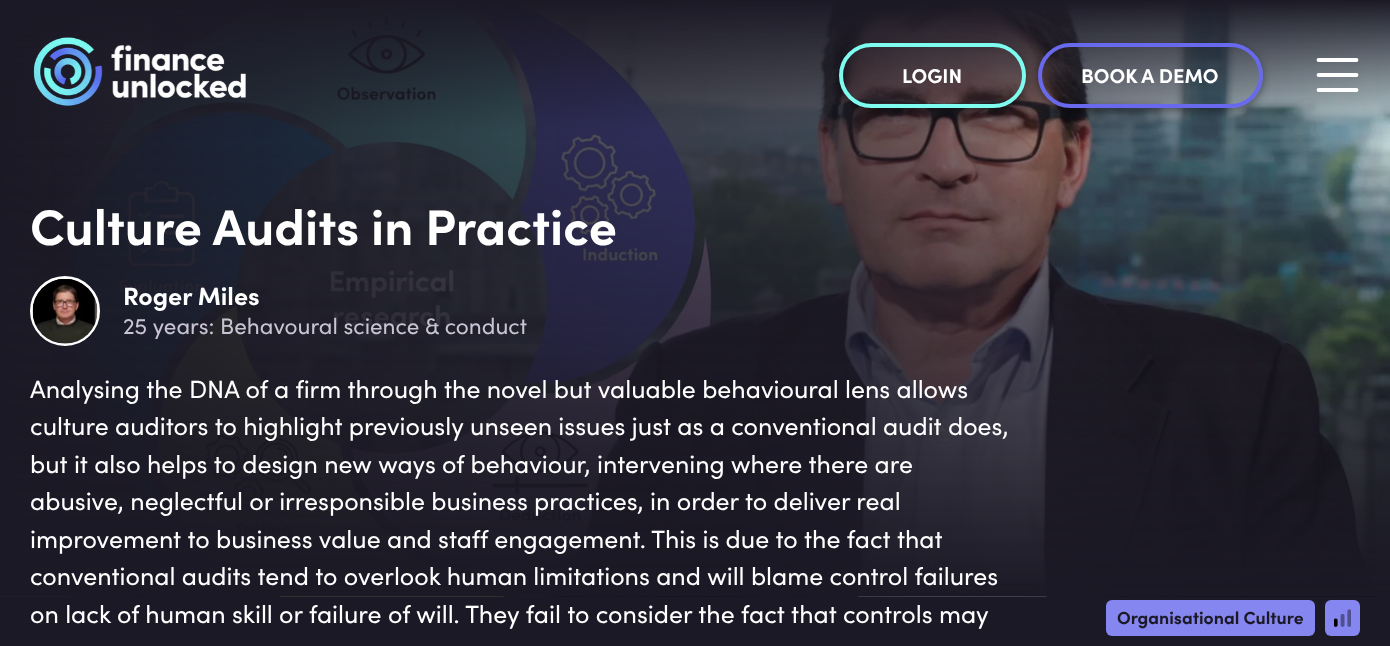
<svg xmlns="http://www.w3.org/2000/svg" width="1390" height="646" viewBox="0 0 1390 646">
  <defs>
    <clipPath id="clip1"><path d="M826 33H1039V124H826ZM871.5 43H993.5C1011.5 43 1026 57.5 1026 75.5C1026 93.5 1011.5 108 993.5 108H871.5C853.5 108 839 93.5 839 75.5C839 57.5 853.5 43 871.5 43Z" clip-rule="evenodd"/></clipPath>
    <clipPath id="clip2"><path d="M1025 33H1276V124H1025ZM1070.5 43H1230.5C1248.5 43 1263 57.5 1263 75.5C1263 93.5 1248.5 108 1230.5 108H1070.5C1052.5 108 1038 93.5 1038 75.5C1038 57.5 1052.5 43 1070.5 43Z" clip-rule="evenodd"/></clipPath>
  </defs>
  <rect width="100%" height="100%" fill="rgb(27,25,37)"/>
  <image x="0" y="0" width="1390" height="597" href="pic2.png"/>
  <image x="33" y="37" width="213" height="69" href="pic1.png"/>
  <g clip-path="url(#clip1)">
    <rect x="839" y="46" width="187" height="65" rx="32.5" fill="rgba(0,0,0,0.4)" filter="blur(4px)"/>
  </g>
  <rect x="841" y="45" width="183" height="61" rx="30.5" fill="none" stroke="rgb(126,252,240)" stroke-width="4"/>
  <text x="902" y="83" font-family="Sofia" font-size="20" font-weight="bold" fill="rgb(255,255,255)">LOGIN</text>
  <g clip-path="url(#clip2)">
    <rect x="1038" y="46" width="225" height="65" rx="32.5" fill="rgba(0,0,0,0.4)" filter="blur(4px)"/>
  </g>
  <rect x="1040" y="45" width="221" height="61" rx="30.5" fill="none" stroke="rgb(104,105,237)" stroke-width="4"/>
  <text x="1081" y="83" font-family="Sofia" font-size="20" font-weight="bold" fill="rgb(255,255,255)">BOOK A DEMO</text>
  <path d="M1318.5 60H1356.5M1318.5 75H1356.5M1318.5 90H1356.5" fill="none" stroke="rgb(255,255,255)" stroke-width="3.8" stroke-linecap="round" stroke-linejoin="round"/>
  <text x="30" y="245" font-family="Sofia" font-size="50" font-weight="bold" fill="rgb(255,255,255)">Culture Audits in Practice</text>
  <circle cx="65" cy="311" r="33.5" fill="none" stroke="rgb(255,255,255)" stroke-width="3"/>
  <image x="32" y="279" width="66" height="65" href="pic3.png"/>
  <text x="123" y="305" font-family="Sofia" font-size="25" font-weight="bold" fill="rgb(255,255,255)">Roger Miles</text>
  <text x="123" y="334" font-family="Sofia" font-size="22.5" fill="rgb(201,196,212)">25 years: Behavoural science &amp; conduct</text>
  <g font-family="Sofia" font-size="25" fill="rgb(255,255,255)">
    <text>
      <tspan x="30" y="398">Analysing the DNA of a firm through the novel but valuable behavioural lens allows</tspan>
      <tspan x="30" y="435">culture auditors to highlight previously unseen issues just as a conventional audit does,</tspan>
      <tspan x="30" y="473">but it also helps to design new ways of behaviour, intervening where there are</tspan>
      <tspan x="30" y="510">abusive, neglectful or irresponsible business practices, in order to deliver real</tspan>
      <tspan x="30" y="548">improvement to business value and staff engagement. This is due to the fact that</tspan>
      <tspan x="30" y="585">conventional audits tend to overlook human limitations and will blame control failures</tspan>
      <tspan x="30" y="623">on lack of human skill or failure of will. They fail to consider the fact that controls may</tspan>
    </text>
  </g>
  <rect x="1106" y="600" width="209" height="36" rx="6" fill="rgb(134,134,241)"/>
  <text x="1117" y="624" font-family="Sofia" font-size="17.5" font-weight="bold" fill="rgb(27,25,37)">Organisational Culture</text>
  <rect x="1325" y="600" width="35" height="36" rx="6" fill="rgb(134,134,241)"/>
  <image x="1334" y="609" width="17" height="18" href="pic4.png"/>
</svg>
